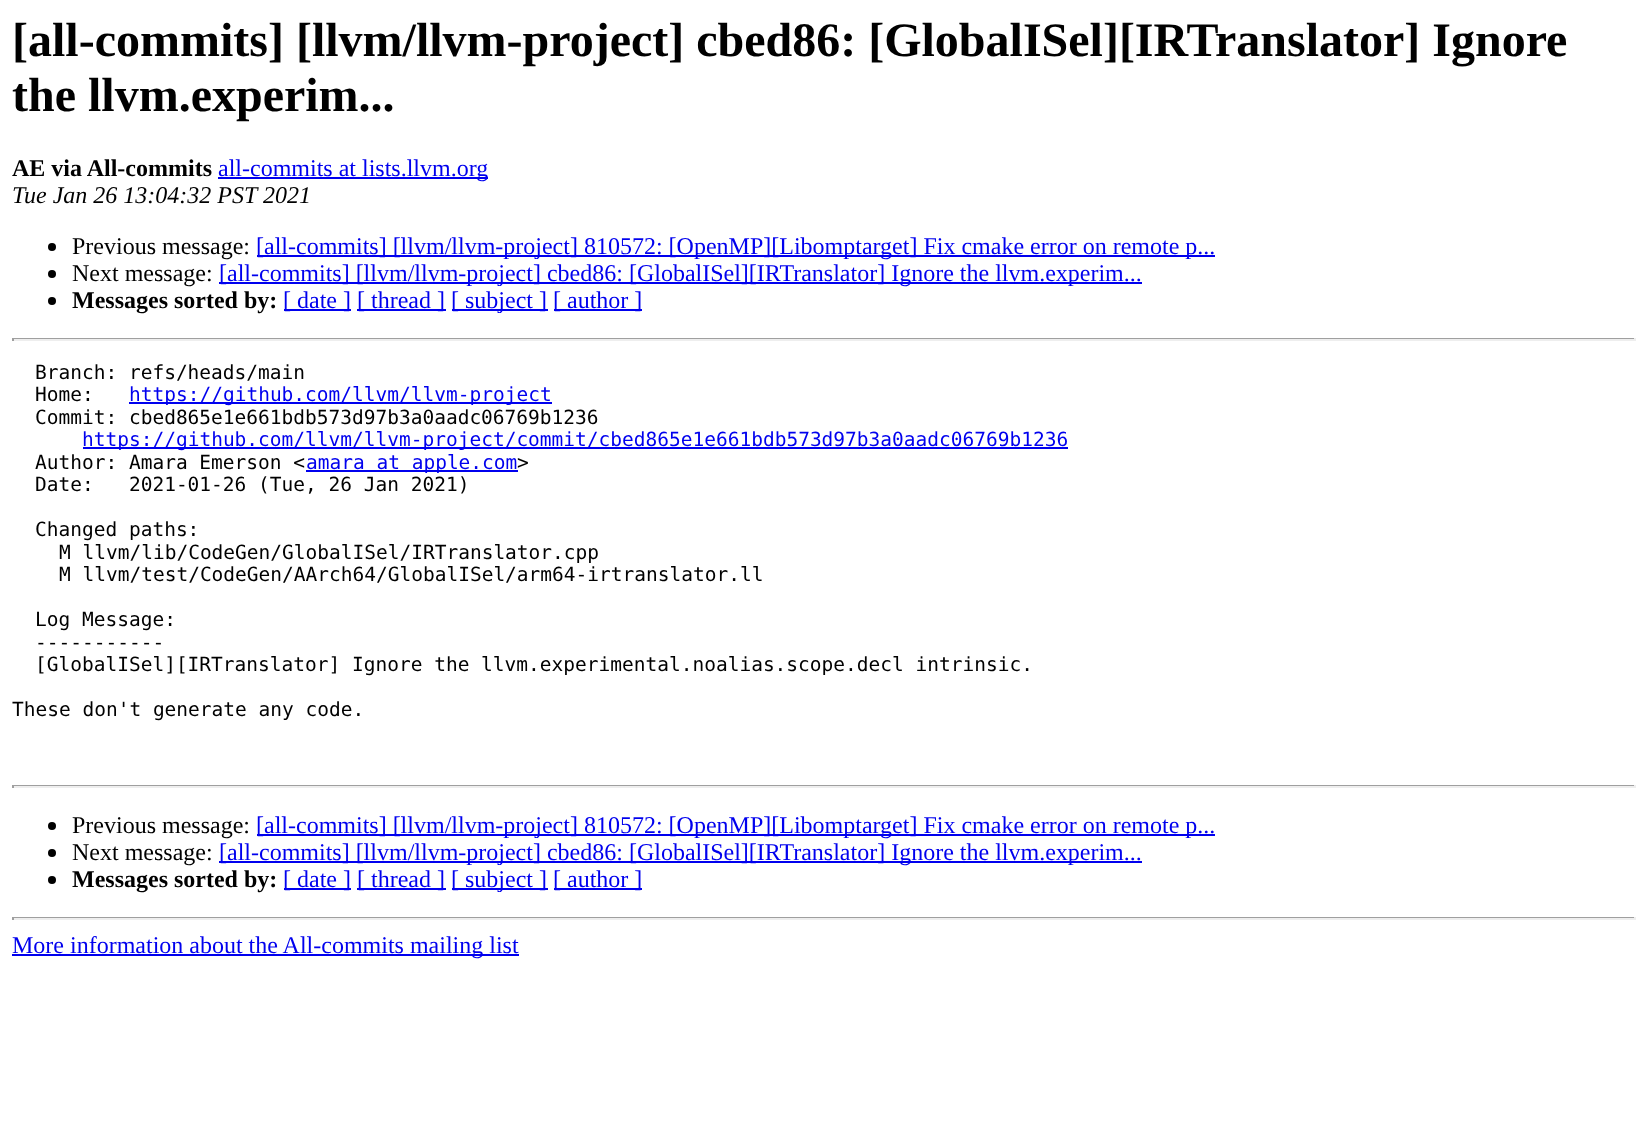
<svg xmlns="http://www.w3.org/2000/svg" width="1646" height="1145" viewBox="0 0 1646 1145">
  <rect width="100%" height="100%" fill="rgb(255,255,255)"/>
  <g font-family="Liberation Serif" font-size="48" font-weight="bold" fill="rgb(0,0,0)">
    <text>
      <tspan x="12" y="56">[all-commits] [llvm/llvm-project] cbed86: [GlobalISel][IRTranslator] Ignore</tspan>
      <tspan x="12" y="111">the llvm.experim...</tspan>
    </text>
  </g>
  <text x="12" y="176" font-family="Liberation Serif" font-size="24" font-weight="bold" fill="rgb(0,0,0)">AE via All-commits</text>
  <rect x="218" y="177" width="270" height="2" fill="rgb(0,0,238)"/>
  <text x="218" y="176" font-family="Liberation Serif" font-size="24" fill="rgb(0,0,238)">all-commits at lists.llvm.org</text>
  <text x="12" y="203" font-family="Liberation Serif" font-size="24" font-style="italic" fill="rgb(0,0,0)">Tue Jan 26 13:04:32 PST 2021</text>
  <circle cx="52" cy="247" r="4" fill="rgb(0,0,0)"/>
  <text x="72" y="254" font-family="Liberation Serif" font-size="24" fill="rgb(0,0,0)">Previous message:</text>
  <rect x="257" y="255" width="958" height="2" fill="rgb(0,0,238)"/>
  <text x="256" y="254" font-family="Liberation Serif" font-size="24" fill="rgb(0,0,238)">[all-commits] [llvm/llvm-project] 810572: [OpenMP][Libomptarget] Fix cmake error on remote p...</text>
  <circle cx="52" cy="274" r="4" fill="rgb(0,0,0)"/>
  <text x="72" y="281" font-family="Liberation Serif" font-size="24" fill="rgb(0,0,0)">Next message:</text>
  <rect x="219" y="282" width="923" height="2" fill="rgb(0,0,238)"/>
  <text x="219" y="281" font-family="Liberation Serif" font-size="24" fill="rgb(0,0,238)">[all-commits] [llvm/llvm-project] cbed86: [GlobalISel][IRTranslator] Ignore the llvm.experim...</text>
  <circle cx="52" cy="301" r="4" fill="rgb(0,0,0)"/>
  <text x="72" y="308" font-family="Liberation Serif" font-size="24" font-weight="bold" fill="rgb(0,0,0)">Messages sorted by:</text>
  <rect x="284" y="309" width="67" height="2" fill="rgb(0,0,238)"/>
  <text x="283" y="308" font-family="Liberation Serif" font-size="24" fill="rgb(0,0,238)">[ date ]</text>
  <rect x="357" y="309" width="89" height="2" fill="rgb(0,0,238)"/>
  <text x="357" y="308" font-family="Liberation Serif" font-size="24" fill="rgb(0,0,238)">[ thread ]</text>
  <rect x="452" y="309" width="96" height="2" fill="rgb(0,0,238)"/>
  <text x="451" y="308" font-family="Liberation Serif" font-size="24" fill="rgb(0,0,238)">[ subject ]</text>
  <rect x="554" y="309" width="88" height="2" fill="rgb(0,0,238)"/>
  <text x="553" y="308" font-family="Liberation Serif" font-size="24" fill="rgb(0,0,238)">[ author ]</text>
  <rect x="12" y="338" width="1623" height="1" fill="rgb(159,159,159)"/>
  <rect x="1634" y="338" width="2" height="3" fill="rgb(238,238,238)"/>
  <rect x="12" y="339" width="1623" height="2" fill="rgb(238,238,238)"/>
  <rect x="12" y="338" width="2" height="3" fill="rgb(159,159,159)"/>
  <g font-family="DejaVu Sans Mono" font-size="19.5" fill="rgb(0,0,0)">
    <text>
      <tspan x="35" y="379">Branch: refs/heads/main</tspan>
      <tspan x="35" y="401">Home:</tspan>
    </text>
  </g>
  <rect x="129" y="402" width="423" height="2" fill="rgb(0,0,238)"/>
  <text x="129" y="401" font-family="DejaVu Sans Mono" font-size="19.5" fill="rgb(0,0,238)">https://github.com/llvm/llvm-project</text>
  <text x="35" y="424" font-family="DejaVu Sans Mono" font-size="19.5" fill="rgb(0,0,0)">Commit: cbed865e1e661bdb573d97b3a0aadc06769b1236</text>
  <rect x="83" y="447" width="985" height="2" fill="rgb(0,0,238)"/>
  <text x="82" y="446" font-family="DejaVu Sans Mono" font-size="19.5" fill="rgb(0,0,238)">https://github.com/llvm/llvm-project/commit/cbed865e1e661bdb573d97b3a0aadc06769b1236</text>
  <text x="35" y="469" font-family="DejaVu Sans Mono" font-size="19.5" fill="rgb(0,0,0)">Author: Amara Emerson &lt;</text>
  <rect x="306" y="470" width="212" height="2" fill="rgb(0,0,238)"/>
  <text x="306" y="469" font-family="DejaVu Sans Mono" font-size="19.5" fill="rgb(0,0,238)">amara at apple.com</text>
  <g font-family="DejaVu Sans Mono" font-size="19.5" fill="rgb(0,0,0)">
    <text x="517" y="469">&gt;</text>
    <text x="35" y="491" xml:space="preserve">Date:   2021-01-26 (Tue, 26 Jan 2021)</text>
    <text x="35" y="536">Changed paths:</text>
    <text>
      <tspan x="59" y="559">M llvm/lib/CodeGen/GlobalISel/IRTranslator.cpp</tspan>
      <tspan x="59" y="581">M llvm/test/CodeGen/AArch64/GlobalISel/arm64-irtranslator.ll</tspan>
    </text>
    <text>
      <tspan x="35" y="626">Log Message:</tspan>
      <tspan x="35" y="649">-----------</tspan>
      <tspan x="35" y="671">[GlobalISel][IRTranslator] Ignore the llvm.experimental.noalias.scope.decl intrinsic.</tspan>
    </text>
    <text x="12" y="716">These don't generate any code.</text>
  </g>
  <rect x="12" y="785" width="1623" height="1" fill="rgb(159,159,159)"/>
  <rect x="1634" y="785" width="2" height="3" fill="rgb(238,238,238)"/>
  <rect x="12" y="786" width="1623" height="2" fill="rgb(238,238,238)"/>
  <rect x="12" y="785" width="2" height="3" fill="rgb(159,159,159)"/>
  <circle cx="52" cy="826" r="4" fill="rgb(0,0,0)"/>
  <text x="72" y="833" font-family="Liberation Serif" font-size="24" fill="rgb(0,0,0)">Previous message:</text>
  <rect x="257" y="834" width="958" height="2" fill="rgb(0,0,238)"/>
  <text x="256" y="833" font-family="Liberation Serif" font-size="24" fill="rgb(0,0,238)">[all-commits] [llvm/llvm-project] 810572: [OpenMP][Libomptarget] Fix cmake error on remote p...</text>
  <circle cx="52" cy="853" r="4" fill="rgb(0,0,0)"/>
  <text x="72" y="860" font-family="Liberation Serif" font-size="24" fill="rgb(0,0,0)">Next message:</text>
  <rect x="219" y="861" width="923" height="2" fill="rgb(0,0,238)"/>
  <text x="219" y="860" font-family="Liberation Serif" font-size="24" fill="rgb(0,0,238)">[all-commits] [llvm/llvm-project] cbed86: [GlobalISel][IRTranslator] Ignore the llvm.experim...</text>
  <circle cx="52" cy="880" r="4" fill="rgb(0,0,0)"/>
  <text x="72" y="887" font-family="Liberation Serif" font-size="24" font-weight="bold" fill="rgb(0,0,0)">Messages sorted by:</text>
  <rect x="284" y="888" width="67" height="2" fill="rgb(0,0,238)"/>
  <text x="283" y="887" font-family="Liberation Serif" font-size="24" fill="rgb(0,0,238)">[ date ]</text>
  <rect x="357" y="888" width="89" height="2" fill="rgb(0,0,238)"/>
  <text x="357" y="887" font-family="Liberation Serif" font-size="24" fill="rgb(0,0,238)">[ thread ]</text>
  <rect x="452" y="888" width="96" height="2" fill="rgb(0,0,238)"/>
  <text x="451" y="887" font-family="Liberation Serif" font-size="24" fill="rgb(0,0,238)">[ subject ]</text>
  <rect x="554" y="888" width="88" height="2" fill="rgb(0,0,238)"/>
  <text x="553" y="887" font-family="Liberation Serif" font-size="24" fill="rgb(0,0,238)">[ author ]</text>
  <rect x="12" y="917" width="1623" height="1" fill="rgb(159,159,159)"/>
  <rect x="1634" y="917" width="2" height="3" fill="rgb(238,238,238)"/>
  <rect x="12" y="918" width="1623" height="2" fill="rgb(238,238,238)"/>
  <rect x="12" y="917" width="2" height="3" fill="rgb(159,159,159)"/>
  <rect x="12" y="954" width="507" height="2" fill="rgb(0,0,238)"/>
  <text x="12" y="953" font-family="Liberation Serif" font-size="24" fill="rgb(0,0,238)">More information about the All-commits mailing list</text>
</svg>
